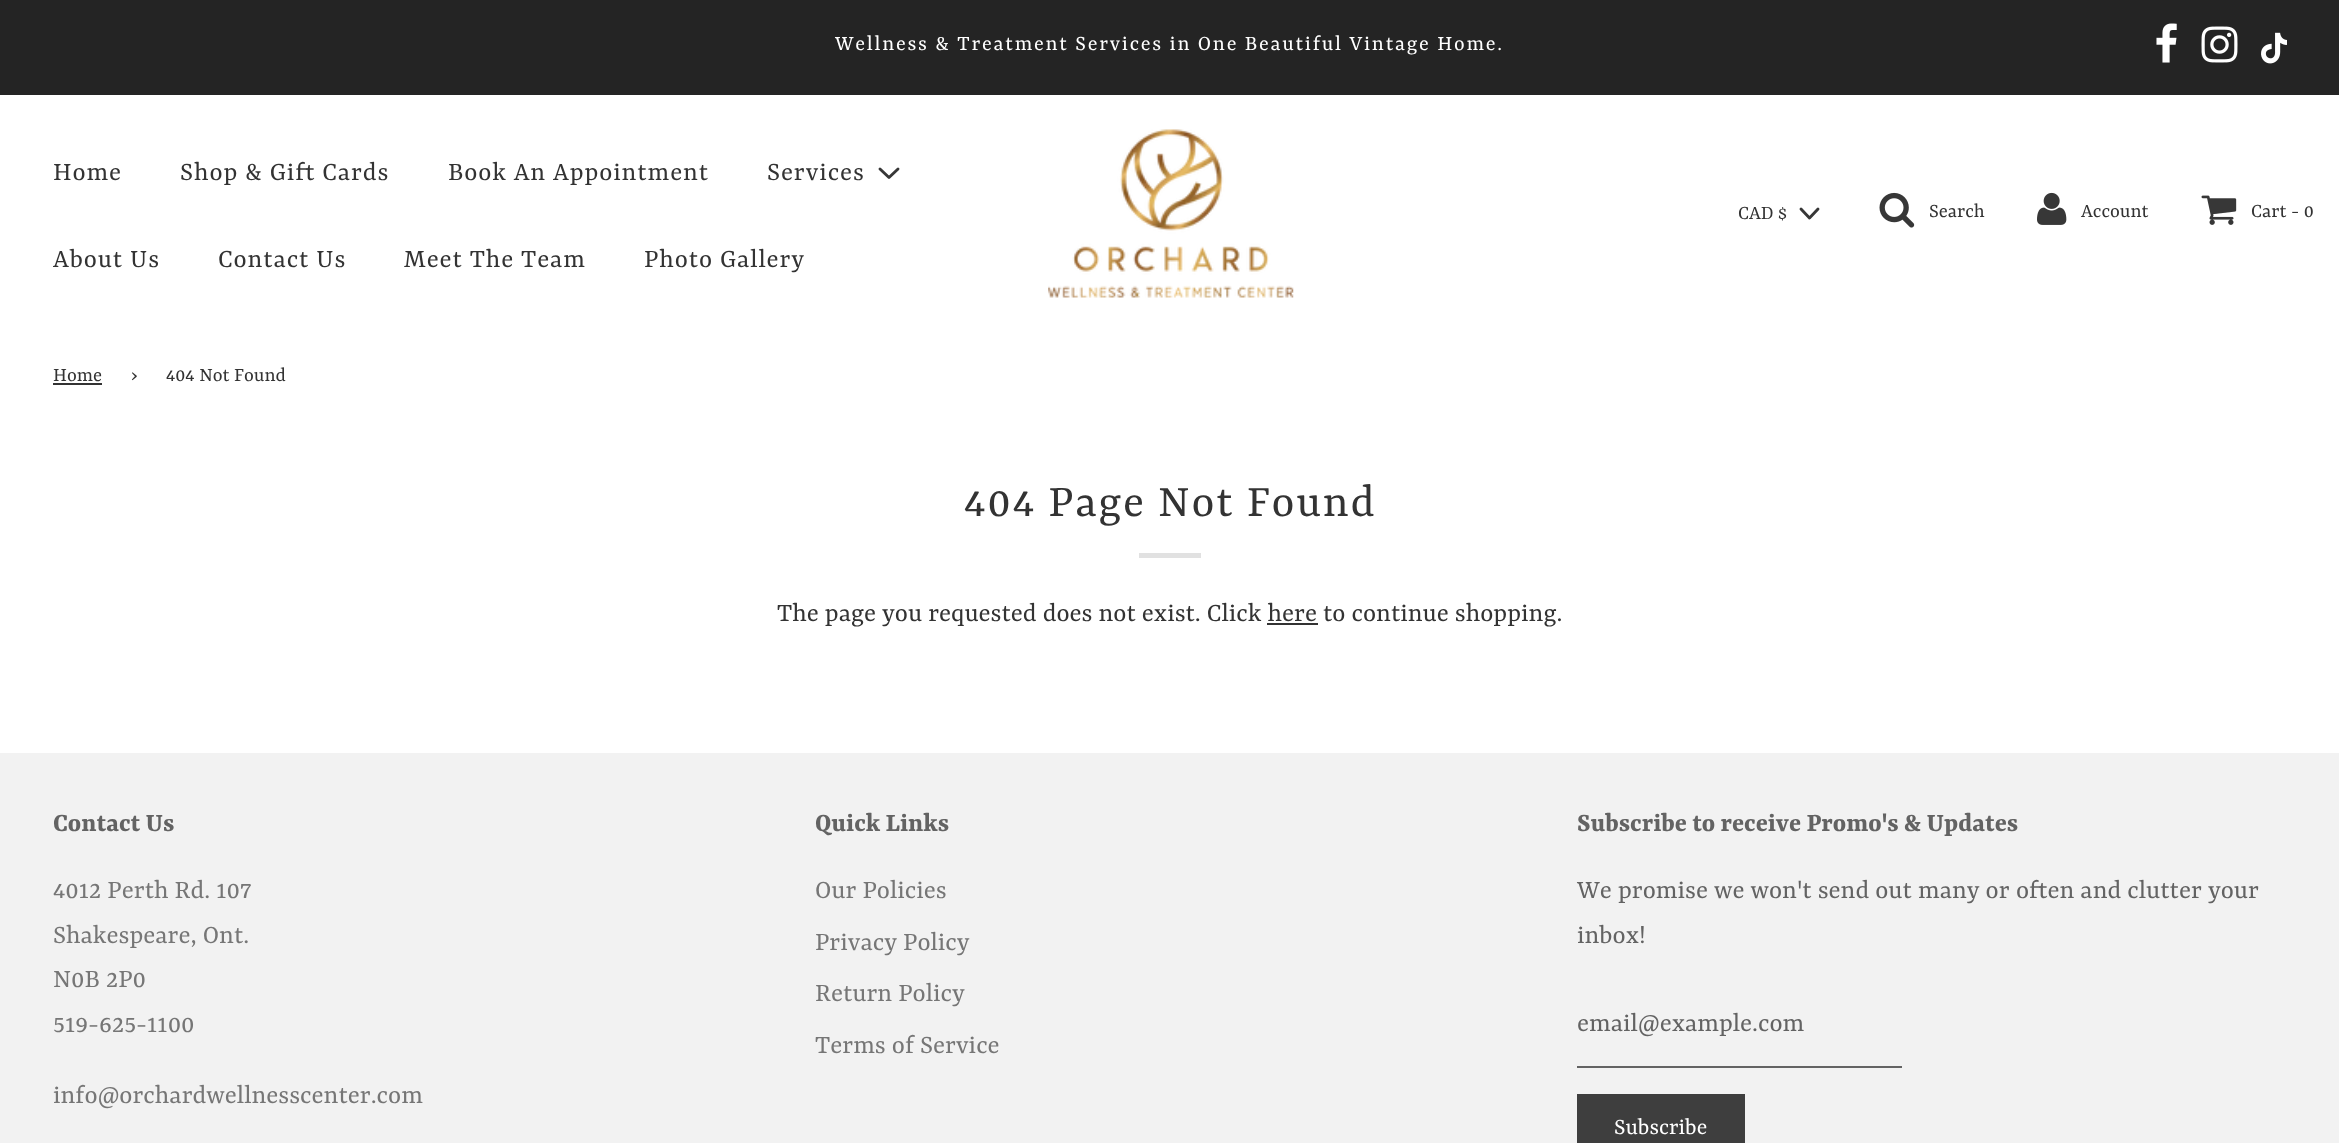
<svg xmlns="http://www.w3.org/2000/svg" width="2339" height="1143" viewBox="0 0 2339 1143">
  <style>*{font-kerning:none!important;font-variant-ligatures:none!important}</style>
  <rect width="100%" height="100%" fill="rgb(255,255,255)"/>
  <rect x="0" y="0" width="2339" height="95" fill="rgb(36,36,36)"/>
  <text x="835" y="50" font-family="Rasa" font-size="22.75" letter-spacing="1.75" fill="rgb(255,255,255)">Wellness &amp; Treatment Services in One Beautiful Vintage Home.</text>
  <image x="2156" y="23" width="21" height="40" href="pic1.png"/>
  <image x="2201" y="26" width="37" height="37" href="pic2.png"/>
  <image x="2261" y="32" width="26" height="32" href="pic3.png"/>
  <g font-family="Rasa" font-size="28" letter-spacing="0.9" fill="rgb(51,51,51)">
    <text x="53" y="180">Home</text>
    <text x="180" y="180">Shop &amp; Gift Cards</text>
    <text x="448" y="180">Book An Appointment</text>
    <text x="767" y="180">Services</text>
  </g>
  <path d="M880 169L889 177.5L898 169" fill="none" stroke="rgb(55,55,55)" stroke-width="2.9" stroke-linecap="round" stroke-linejoin="round"/>
  <g font-family="Rasa" font-size="28" letter-spacing="0.9" fill="rgb(51,51,51)">
    <text x="53" y="267">About Us</text>
    <text x="218" y="267">Contact Us</text>
    <text x="404" y="267">Meet The Team</text>
    <text x="644" y="267">Photo Gallery</text>
  </g>
  <image x="1048" y="129" width="246" height="169" href="pic4.png"/>
  <text x="1738" y="219" font-family="Rasa" font-size="21" fill="rgb(51,51,51)">CAD $</text>
  <path d="M1801 209L1809.5 218L1818 209" fill="none" stroke="rgb(55,55,55)" stroke-width="2.9" stroke-linecap="round" stroke-linejoin="round"/>
  <image x="1879" y="192" width="36" height="36" href="pic5.png"/>
  <text x="1929" y="217" font-family="Rasa" font-size="21" fill="rgb(51,51,51)">Search</text>
  <image x="2037" y="192" width="30" height="33" href="pic6.png"/>
  <text x="2081" y="217" font-family="Rasa" font-size="21" fill="rgb(51,51,51)">Account</text>
  <image x="2201" y="195" width="36" height="30" href="pic7.png"/>
  <g font-family="Rasa" font-size="21" fill="rgb(51,51,51)">
    <text x="2251" y="217">Cart - 0</text>
    <text x="53" y="381">Home</text>
  </g>
  <rect x="53" y="383" width="49" height="2" fill="rgb(51,51,51)"/>
  <g font-family="Rasa" font-size="21" fill="rgb(51,51,51)">
    <text x="131" y="381">›</text>
    <text x="166" y="381">404 Not Found</text>
  </g>
  <text x="964" y="516" font-family="Rasa" font-size="49" letter-spacing="1.75" fill="rgb(51,51,51)">404 Page Not Found</text>
  <rect x="1139" y="553" width="62" height="5" fill="rgb(225,225,225)"/>
  <text x="777" y="621" font-family="Rasa" font-size="28" fill="rgb(51,51,51)">The page you requested does not exist. Click here to continue shopping.</text>
  <rect x="1267" y="623" width="51" height="2" fill="rgb(51,51,51)"/>
  <rect x="0" y="753" width="2339" height="390" fill="rgb(242,242,242)"/>
  <text x="53" y="831" font-family="Rasa" font-size="28" font-weight="bold" fill="rgb(99,99,99)">Contact Us</text>
  <g font-family="Rasa" font-size="28" fill="rgb(118,118,118)">
    <text>
      <tspan x="53" y="898">4012 Perth Rd. 107</tspan>
      <tspan x="53" y="943">Shakespeare, Ont.</tspan>
      <tspan x="53" y="987">N0B 2P0</tspan>
      <tspan x="53" y="1032">519-625-1100</tspan>
    </text>
    <text x="53" y="1103">info@orchardwellnesscenter.com</text>
  </g>
  <text x="815" y="831" font-family="Rasa" font-size="28" font-weight="bold" fill="rgb(99,99,99)">Quick Links</text>
  <g font-family="Rasa" font-size="28" fill="rgb(118,118,118)">
    <text>
      <tspan x="815" y="898">Our Policies</tspan>
      <tspan x="815" y="950">Privacy Policy</tspan>
      <tspan x="815" y="1001">Return Policy</tspan>
      <tspan x="815" y="1053">Terms of Service</tspan>
    </text>
  </g>
  <text x="1577" y="831" font-family="Rasa" font-size="28" font-weight="bold" fill="rgb(99,99,99)">Subscribe to receive Promo's &amp; Updates</text>
  <g font-family="Rasa" font-size="28" fill="rgb(99,99,99)">
    <text x="1577" y="898">We promise we won't send out many or</text>
    <text x="2016" y="898">often and clutter your</text>
    <text x="1577" y="943">inbox!</text>
  </g>
  <rect x="1577" y="1066" width="325" height="2" fill="rgb(99,99,99)"/>
  <text x="1577" y="1031" font-family="Rasa" font-size="28" fill="rgb(99,99,99)">email@example.com</text>
  <rect x="1577" y="1094" width="168" height="49" fill="rgb(62,62,62)"/>
  <text x="1614" y="1134" font-family="Rasa" font-size="24.5" fill="rgb(255,255,255)">Subscribe</text>
</svg>
